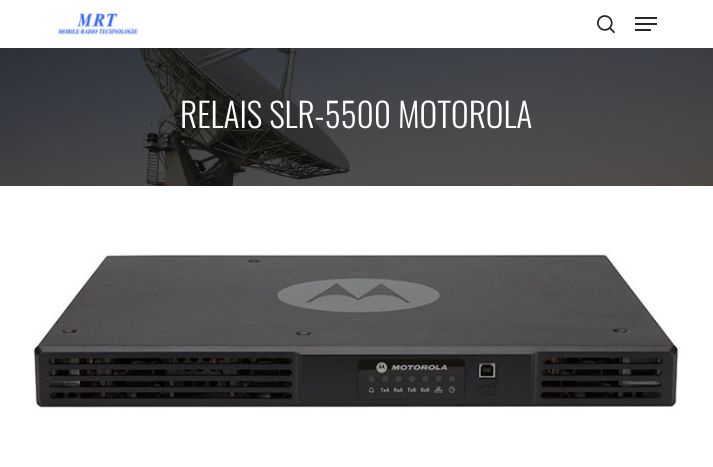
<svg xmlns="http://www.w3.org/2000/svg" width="713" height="467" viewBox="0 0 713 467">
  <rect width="100%" height="100%" fill="rgb(255,255,255)"/>
  <image x="57" y="13" width="81" height="22" href="pic1.png"/>
  <image x="597" y="15" width="18" height="19" href="pic2.png"/>
  <rect x="635" y="17" width="22" height="2" fill="rgb(40,40,40)"/>
  <rect x="635" y="29" width="16" height="2" fill="rgb(40,40,40)"/>
  <rect x="635" y="23" width="22" height="2" fill="rgb(40,40,40)"/>
  <image x="0" y="48" width="713" height="138" href="pic3.png"/>
  <text x="180" y="128" font-family="Oswald" font-size="33.6" font-weight="300" fill="rgb(255,255,255)">RELAIS SLR-5500 MOTOROLA</text>
  <image x="32" y="251" width="649" height="159" href="pic4.png"/>
</svg>
